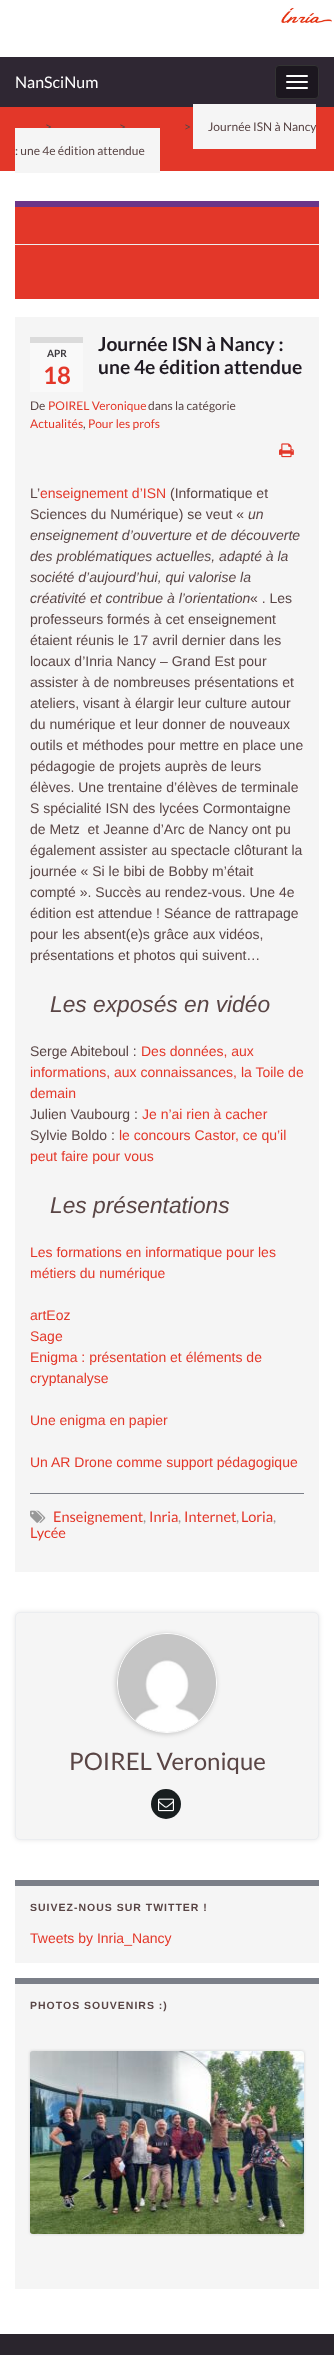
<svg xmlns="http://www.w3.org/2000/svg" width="334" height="2355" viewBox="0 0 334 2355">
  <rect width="100%" height="100%" fill="rgb(255,255,255)"/>
  <image x="281" y="7" width="51" height="16" href="pic1.png"/>
  <rect x="0" y="57" width="334" height="50" fill="rgb(47,39,51)"/>
  <text x="15" y="88" font-family="Lato" font-size="16" fill="rgb(255,255,255)">NanSciNum</text>
  <rect x="275.5" y="65.5" width="43" height="33" rx="3.5" fill="rgb(28,23,31)" stroke="rgb(51,51,51)"/>
  <rect x="286" y="75" width="22" height="2" rx="1" fill="rgb(255,255,255)"/>
  <rect x="286" y="81" width="22" height="2" rx="1" fill="rgb(255,255,255)"/>
  <rect x="286" y="87" width="22" height="2" rx="1" fill="rgb(255,255,255)"/>
  <rect x="0" y="107" width="334" height="64" fill="rgb(227,55,41)"/>
  <g font-family="Lato" font-size="12" fill="rgb(89,69,69)">
    <text x="45" y="131">&gt;</text>
    <text x="119" y="131">&gt;</text>
    <text x="184" y="131">&gt;</text>
  </g>
  <rect x="193" y="104" width="123" height="45" fill="rgb(245,245,245)"/>
  <text x="208" y="131" font-family="Lato" font-size="12" fill="rgb(89,69,69)">Journée ISN à Nancy</text>
  <rect x="15" y="128" width="145" height="45" fill="rgb(245,245,245)"/>
  <text x="15" y="155" font-family="Lato" font-size="12" fill="rgb(89,69,69)">: une 4e édition attendue</text>
  <rect x="15" y="207" width="304" height="92" fill="rgb(227,55,41)"/>
  <rect x="15" y="201" width="304" height="6" fill="rgb(107,53,137)"/>
  <rect x="15" y="244" width="304" height="1" fill="rgb(238,238,238)"/>
  <rect x="15" y="317" width="304" height="1255" fill="rgb(245,245,245)"/>
  <rect x="30" y="343" width="53" height="49" fill="rgb(249,249,249)"/>
  <rect x="30" y="337" width="53" height="6" fill="rgb(219,219,219)"/>
  <text x="47" y="357" font-family="Lato" font-size="10" font-weight="bold" fill="rgb(59,56,61)">APR</text>
  <text x="43" y="384" font-family="Lato" font-size="24" font-weight="bold" fill="rgb(227,55,41)">18</text>
  <g font-family="Lato" font-size="19.25" font-weight="bold" fill="rgb(31,26,34)">
    <text>
      <tspan x="98" y="351">Journée ISN à Nancy :</tspan>
      <tspan x="98" y="374">une 4e édition attendue</tspan>
    </text>
  </g>
  <text x="30" y="410" font-family="Lato" font-size="12" fill="rgb(89,69,69)">De</text>
  <text x="48" y="410" font-family="Lato" font-size="12" fill="rgb(227,55,41)">POIREL Veronique</text>
  <text x="148" y="410" font-family="Lato" font-size="12" fill="rgb(89,69,69)">dans la catégorie</text>
  <text x="30" y="428" font-family="Lato" font-size="12" fill="rgb(227,55,41)">Actualités</text>
  <text x="83" y="428" font-family="Lato" font-size="12" fill="rgb(89,69,69)">,</text>
  <text x="88" y="428" font-family="Lato" font-size="12" fill="rgb(227,55,41)">Pour les profs</text>
  <image x="279" y="443" width="15" height="15" href="pic2.png"/>
  <text x="30" y="498" font-family="Liberation Sans" font-size="14" fill="rgb(89,69,69)">L’</text>
  <text x="40" y="498" font-family="Liberation Sans" font-size="14" fill="rgb(227,55,41)">enseignement d’ISN</text>
  <g font-family="Liberation Sans" font-size="14" fill="rgb(89,69,69)">
    <text x="170" y="498">(Informatique et</text>
    <text x="30" y="519">Sciences du Numérique) se veut «</text>
  </g>
  <g font-family="Liberation Sans" font-size="14" font-style="italic" fill="rgb(89,69,69)">
    <text x="248" y="519">un</text>
    <text>
      <tspan x="30" y="540">enseignement d’ouverture et de découverte</tspan>
      <tspan x="30" y="561">des problématiques actuelles, adapté à la</tspan>
      <tspan x="30" y="582">société d’aujourd’hui, qui valorise la</tspan>
      <tspan x="30" y="603">créativité et contribue à l’orientation</tspan>
    </text>
  </g>
  <g font-family="Liberation Sans" font-size="14" fill="rgb(89,69,69)">
    <text x="250" y="603">« . Les</text>
    <text xml:space="preserve"><tspan x="30" y="624">professeurs formés à cet enseignement</tspan><tspan x="30" y="645">étaient réunis le 17 avril dernier dans les</tspan><tspan x="30" y="666">locaux d’Inria Nancy – Grand Est pour</tspan><tspan x="30" y="687">assister à de nombreuses présentations et</tspan><tspan x="30" y="708">ateliers, visant à élargir leur culture autour</tspan><tspan x="30" y="729">du numérique et leur donner de nouveaux</tspan><tspan x="30" y="750">outils et méthodes pour mettre en place une</tspan><tspan x="30" y="771">pédagogie de projets auprès de leurs</tspan><tspan x="30" y="792">élèves. Une trentaine d’élèves de terminale</tspan><tspan x="30" y="813">S spécialité ISN des lycées Cormontaigne</tspan><tspan x="30" y="834">de Metz  et Jeanne d’Arc de Nancy ont pu</tspan><tspan x="30" y="855">également assister au spectacle clôturant la</tspan><tspan x="30" y="876">journée « Si le bibi de Bobby m’était</tspan><tspan x="30" y="897">compté ». Succès au rendez-vous. Une 4e</tspan><tspan x="30" y="918">édition est attendue ! Séance de rattrapage</tspan><tspan x="30" y="939">pour les absent(e)s grâce aux vidéos,</tspan><tspan x="30" y="960">présentations et photos qui suivent…</tspan></text>
  </g>
  <text x="50" y="1012" font-family="Liberation Sans" font-size="22.75" font-style="italic" fill="rgb(89,69,69)">Les exposés en vidéo</text>
  <text x="30" y="1056" font-family="Liberation Sans" font-size="14" fill="rgb(89,69,69)">Serge Abiteboul :</text>
  <g font-family="Liberation Sans" font-size="14" fill="rgb(227,55,41)">
    <text x="141" y="1056">Des données, aux</text>
    <text>
      <tspan x="30" y="1077">informations, aux connaissances, la Toile de</tspan>
      <tspan x="30" y="1098">demain</tspan>
    </text>
  </g>
  <text x="30" y="1119" font-family="Liberation Sans" font-size="14" fill="rgb(89,69,69)">Julien Vaubourg :</text>
  <text x="142" y="1119" font-family="Liberation Sans" font-size="14" fill="rgb(227,55,41)">Je n’ai rien à cacher</text>
  <text x="30" y="1140" font-family="Liberation Sans" font-size="14" fill="rgb(89,69,69)">Sylvie Boldo :</text>
  <g font-family="Liberation Sans" font-size="14" fill="rgb(227,55,41)">
    <text x="119" y="1140">le concours Castor, ce qu’il</text>
    <text x="30" y="1161">peut faire pour vous</text>
  </g>
  <text x="50" y="1213" font-family="Liberation Sans" font-size="22.75" font-style="italic" fill="rgb(89,69,69)">Les présentations</text>
  <g font-family="Liberation Sans" font-size="14" fill="rgb(227,55,41)">
    <text>
      <tspan x="30" y="1257">Les formations en informatique pour les</tspan>
      <tspan x="30" y="1278">métiers du numérique</tspan>
    </text>
    <text>
      <tspan x="30" y="1320">artEoz</tspan>
      <tspan x="30" y="1341">Sage</tspan>
      <tspan x="30" y="1362">Enigma : présentation et éléments de</tspan>
      <tspan x="30" y="1383">cryptanalyse</tspan>
    </text>
    <text x="30" y="1425">Une enigma en papier</text>
    <text x="30" y="1467">Un AR Drone comme support pédagogique</text>
  </g>
  <rect x="30" y="1493" width="274" height="1" fill="rgb(123,127,136)"/>
  <image x="30" y="1510" width="16" height="13" href="pic3.png"/>
  <text x="53" y="1522" font-family="Lato" font-size="14.5" fill="rgb(227,55,41)">Enseignement</text>
  <text x="143" y="1522" font-family="Lato" font-size="14.5" fill="rgb(152,152,152)">,</text>
  <text x="149" y="1522" font-family="Lato" font-size="14.5" fill="rgb(227,55,41)">Inria</text>
  <text x="178" y="1522" font-family="Lato" font-size="14.5" fill="rgb(152,152,152)">,</text>
  <text x="184" y="1522" font-family="Lato" font-size="14.5" fill="rgb(227,55,41)">Internet</text>
  <text x="236" y="1522" font-family="Lato" font-size="14.5" fill="rgb(152,152,152)">,</text>
  <text x="241" y="1522" font-family="Lato" font-size="14.5" fill="rgb(227,55,41)">Loria</text>
  <text x="273" y="1522" font-family="Lato" font-size="14.5" fill="rgb(152,152,152)">,</text>
  <text x="30" y="1538" font-family="Lato" font-size="14.5" fill="rgb(227,55,41)">Lycée</text>
  <rect x="15" y="1612" width="304" height="228" rx="5" fill="rgba(0,0,0,0.1)" filter="blur(2.5px)"/>
  <rect x="15.5" y="1612.5" width="303" height="227" rx="4.5" fill="rgb(245,245,245)" stroke="rgb(235,237,240)"/>
  <rect x="116" y="1634" width="100" height="100" rx="50" fill="rgba(0,0,0,0.2)" filter="blur(2.5px)"/>
  <circle cx="167" cy="1683" r="49.5" fill="none" stroke="rgb(255,255,255)"/>
  <image x="118" y="1634" width="98" height="98" href="pic4.png"/>
  <text x="69" y="1770" font-family="Lato" font-size="24" fill="rgb(89,69,69)">POIREL Veronique</text>
  <circle cx="166" cy="1804" r="15" fill="rgb(24,30,31)"/>
  <image x="158" y="1798" width="16" height="14" href="pic5.png"/>
  <rect x="15" y="1886" width="304" height="77" fill="rgb(245,245,245)"/>
  <rect x="15" y="1880" width="304" height="6" fill="rgb(123,127,136)"/>
  <text x="30" y="1911" font-family="Liberation Sans" font-size="10.5" font-weight="bold" letter-spacing="1" fill="rgb(89,69,69)">SUIVEZ-NOUS SUR TWITTER !</text>
  <text x="30" y="1943" font-family="Liberation Sans" font-size="14" fill="rgb(227,55,41)">Tweets by Inria_Nancy</text>
  <rect x="15" y="1984" width="304" height="305" fill="rgb(245,245,245)"/>
  <rect x="15" y="1978" width="304" height="6" fill="rgb(123,127,136)"/>
  <text x="30" y="2009" font-family="Liberation Sans" font-size="10.5" font-weight="bold" letter-spacing="1" fill="rgb(89,69,69)">PHOTOS SOUVENIRS :)</text>
  <rect x="30" y="2051" width="274" height="183" rx="3" fill="rgb(204,204,204)" filter="blur(1.5px)"/>
  <image x="30" y="2051" width="274" height="183" href="pic6.png"/>
  <rect x="0" y="2334" width="334" height="21" fill="rgb(42,37,45)"/>
</svg>
